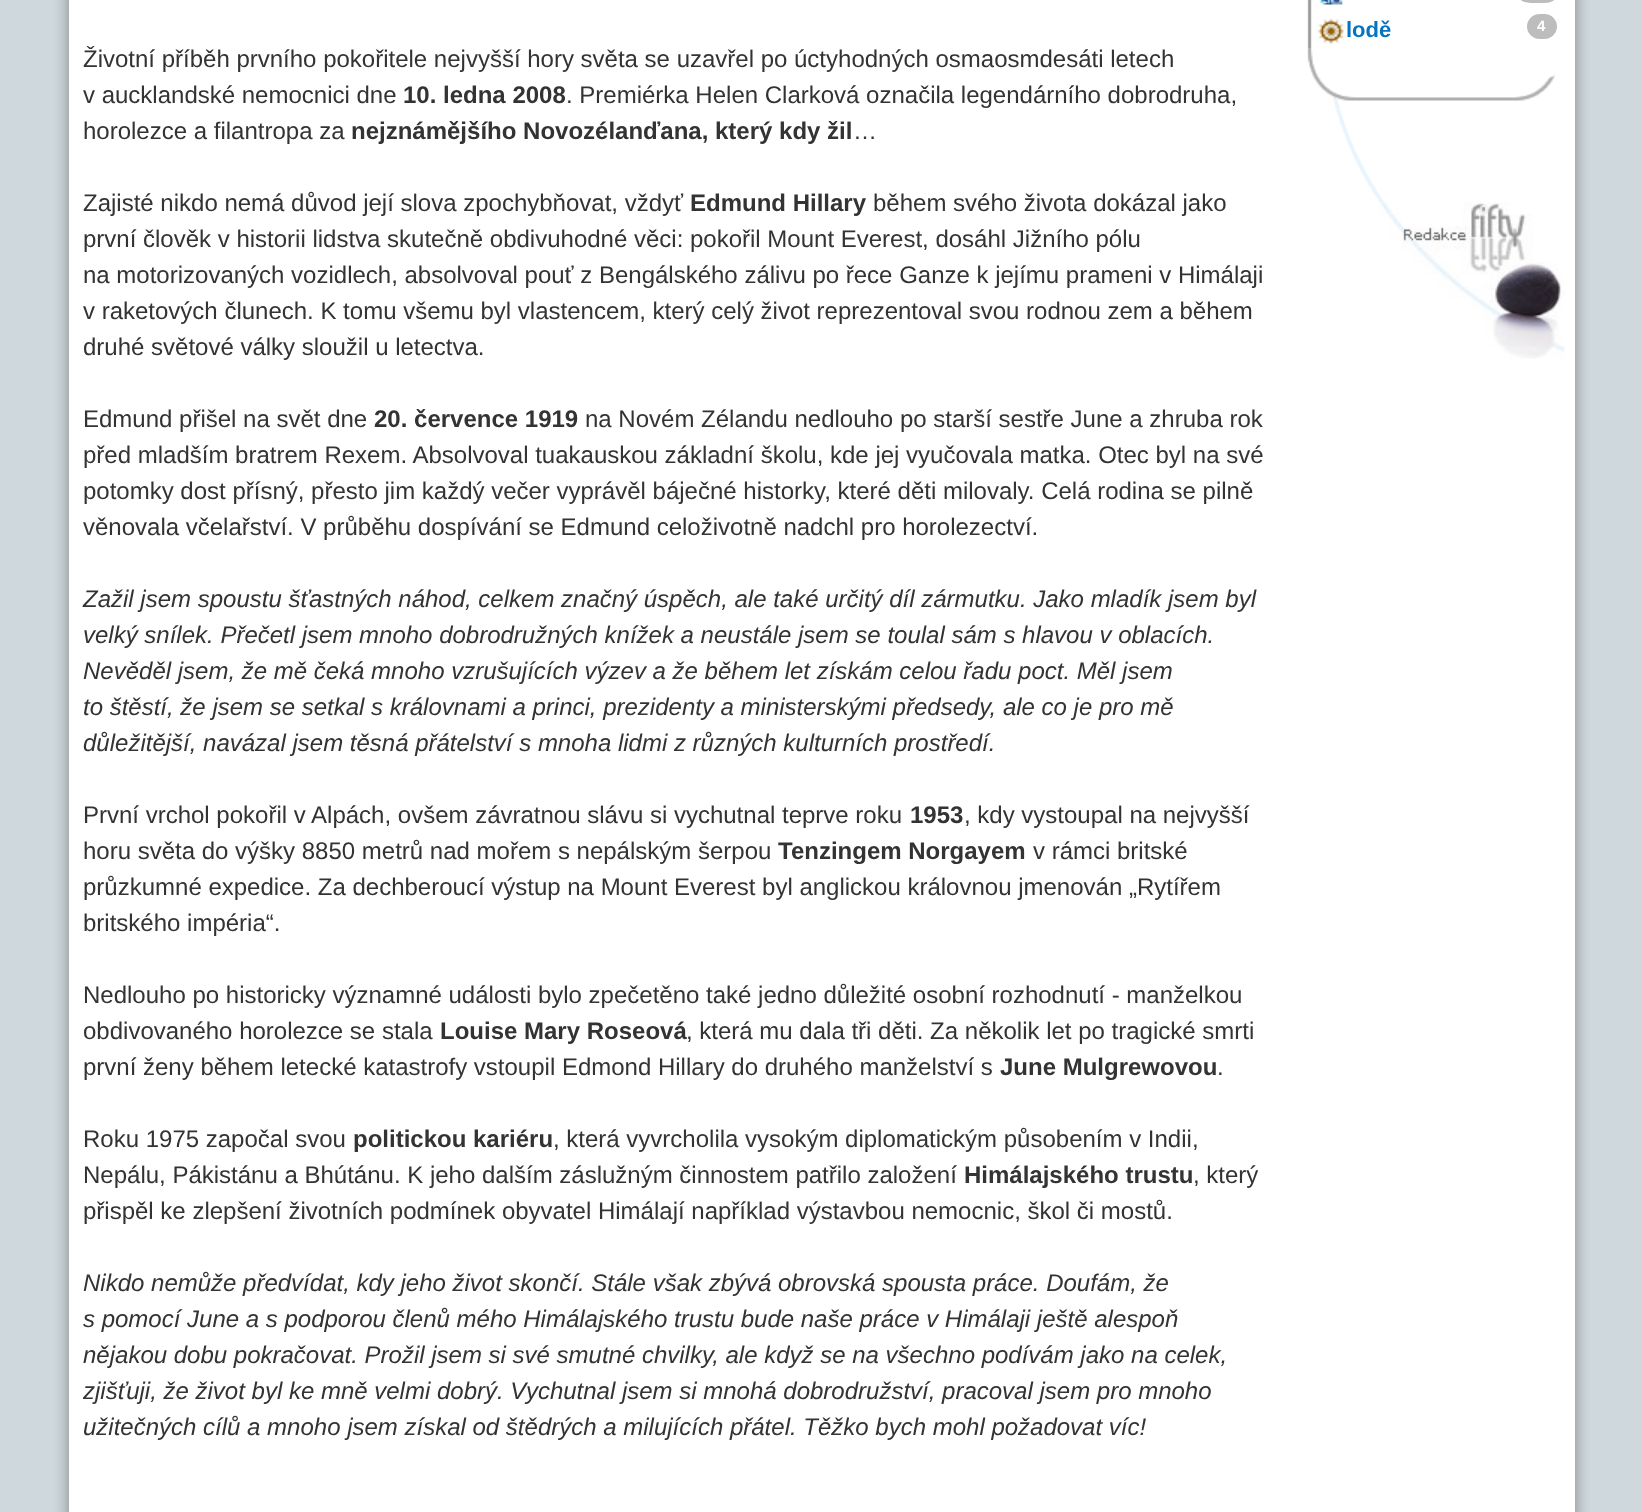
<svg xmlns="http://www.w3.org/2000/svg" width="1642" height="1512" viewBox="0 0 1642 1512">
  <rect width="100%" height="100%" fill="rgb(207,216,220)"/>
  <rect x="69" y="-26" width="1506" height="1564" rx="3" fill="rgba(0,0,0,0.16)" filter="blur(7.5px)"/>
  <rect x="69" y="-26" width="1506" height="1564" rx="3" fill="rgba(0,0,0,0.23)" filter="blur(7.5px)"/>
  <rect x="69" y="0" width="1506" height="1512" fill="rgb(255,255,255)"/>
  <image x="1307" y="0" width="5" height="48" href="pic1.png"/>
  <image x="1319" y="0" width="24" height="5" href="pic2.png"/>
  <rect x="1518" y="-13" width="39" height="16" rx="12.5" fill="rgb(189,189,189)"/>
  <image x="1317" y="18" width="28" height="26" href="pic3.png"/>
  <text x="1346" y="37" font-family="Liberation Sans" font-size="22" font-weight="bold" fill="rgb(3,117,192)">lodě</text>
  <rect x="1527" y="14" width="30" height="25" rx="12.5" fill="rgb(189,189,189)"/>
  <text x="1537" y="31" font-family="Liberation Sans" font-size="15" font-weight="bold" fill="rgb(255,255,255)">4</text>
  <image x="1333" y="100" width="52" height="103" href="pic5.png"/>
  <image x="1307" y="48" width="249" height="53" href="pic4.png"/>
  <image x="1377" y="202" width="188" height="157" href="pic6.png"/>
  <g font-family="Liberation Sans" font-size="24" fill="rgb(51,51,51)">
    <text>
      <tspan x="83" y="67">Životní příběh prvního pokořitele nejvyšší hory světa se uzavřel po úctyhodných osmaosmdesáti letech</tspan>
      <tspan x="83" y="103">v aucklandské nemocnici dne</tspan>
    </text>
  </g>
  <text x="403" y="103" font-family="Liberation Sans" font-size="24" font-weight="bold" fill="rgb(51,51,51)">10. ledna 2008</text>
  <g font-family="Liberation Sans" font-size="24" fill="rgb(51,51,51)">
    <text x="566" y="103">. Premiérka Helen Clarková označila legendárního dobrodruha,</text>
    <text x="83" y="139">horolezce a filantropa za</text>
  </g>
  <text x="351" y="139" font-family="Liberation Sans" font-size="24" font-weight="bold" fill="rgb(51,51,51)">nejznámějšího Novozélanďana, který kdy žil</text>
  <g font-family="Liberation Sans" font-size="24" fill="rgb(51,51,51)">
    <text x="853" y="139">…</text>
    <text x="83" y="211">Zajisté nikdo nemá důvod její slova zpochybňovat, vždyť</text>
  </g>
  <text x="690" y="211" font-family="Liberation Sans" font-size="24" font-weight="bold" fill="rgb(51,51,51)">Edmund Hillary</text>
  <g font-family="Liberation Sans" font-size="24" fill="rgb(51,51,51)">
    <text x="873" y="211">během svého života dokázal jako</text>
    <text>
      <tspan x="83" y="247">první člověk v historii lidstva skutečně obdivuhodné věci: pokořil Mount Everest, dosáhl Jižního pólu</tspan>
      <tspan x="83" y="283">na motorizovaných vozidlech, absolvoval pouť z Bengálského zálivu po řece Ganze k jejímu prameni v Himálaji</tspan>
      <tspan x="83" y="319">v raketových člunech. K tomu všemu byl vlastencem, který celý život reprezentoval svou rodnou zem a během</tspan>
      <tspan x="83" y="355">druhé světové války sloužil u letectva.</tspan>
    </text>
    <text x="83" y="427">Edmund přišel na svět dne</text>
  </g>
  <text x="374" y="427" font-family="Liberation Sans" font-size="24" font-weight="bold" fill="rgb(51,51,51)">20. července 1919</text>
  <g font-family="Liberation Sans" font-size="24" fill="rgb(51,51,51)">
    <text x="585" y="427">na Novém Zélandu nedlouho po starší sestře June a zhruba rok</text>
    <text>
      <tspan x="83" y="463">před mladším bratrem Rexem. Absolvoval tuakauskou základní školu, kde jej vyučovala matka. Otec byl na své</tspan>
      <tspan x="83" y="499">potomky dost přísný, přesto jim každý večer vyprávěl báječné historky, které děti milovaly. Celá rodina se pilně</tspan>
      <tspan x="83" y="535">věnovala včelařství. V průběhu dospívání se Edmund celoživotně nadchl pro horolezectví.</tspan>
    </text>
  </g>
  <g font-family="Liberation Sans" font-size="24" font-style="italic" fill="rgb(51,51,51)">
    <text>
      <tspan x="83" y="607">Zažil jsem spoustu šťastných náhod, celkem značný úspěch, ale také určitý díl zármutku. Jako mladík jsem byl</tspan>
      <tspan x="83" y="643">velký snílek. Přečetl jsem mnoho dobrodružných knížek a neustále jsem se toulal sám s hlavou v oblacích.</tspan>
      <tspan x="83" y="679">Nevěděl jsem, že mě čeká mnoho vzrušujících výzev a že během let získám celou řadu poct. Měl jsem</tspan>
      <tspan x="83" y="715">to štěstí, že jsem se setkal s královnami a princi, prezidenty a ministerskými předsedy, ale co je pro mě</tspan>
      <tspan x="83" y="751">důležitější, navázal jsem těsná přátelství s mnoha lidmi z různých kulturních prostředí.</tspan>
    </text>
  </g>
  <text x="83" y="823" font-family="Liberation Sans" font-size="24" fill="rgb(51,51,51)">První vrchol pokořil v Alpách, ovšem závratnou slávu si vychutnal teprve roku</text>
  <text x="910" y="823" font-family="Liberation Sans" font-size="24" font-weight="bold" fill="rgb(51,51,51)">1953</text>
  <g font-family="Liberation Sans" font-size="24" fill="rgb(51,51,51)">
    <text x="964" y="823">, kdy vystoupal na nejvyšší</text>
    <text x="83" y="859">horu světa do výšky 8850 metrů nad mořem s nepálským šerpou</text>
  </g>
  <text x="778" y="859" font-family="Liberation Sans" font-size="24" font-weight="bold" fill="rgb(51,51,51)">Tenzingem Norgayem</text>
  <g font-family="Liberation Sans" font-size="24" fill="rgb(51,51,51)">
    <text x="1033" y="859">v rámci britské</text>
    <text>
      <tspan x="83" y="895">průzkumné expedice. Za dechberoucí výstup na Mount Everest byl anglickou královnou jmenován „Rytířem</tspan>
      <tspan x="83" y="931">britského impéria“.</tspan>
    </text>
    <text>
      <tspan x="83" y="1003">Nedlouho po historicky významné události bylo zpečetěno také jedno důležité osobní rozhodnutí - manželkou</tspan>
      <tspan x="83" y="1039">obdivovaného horolezce se stala</tspan>
    </text>
  </g>
  <text x="440" y="1039" font-family="Liberation Sans" font-size="24" font-weight="bold" fill="rgb(51,51,51)">Louise Mary Roseová</text>
  <g font-family="Liberation Sans" font-size="24" fill="rgb(51,51,51)">
    <text x="686" y="1039">, která mu dala tři děti. Za několik let po tragické smrti</text>
    <text x="83" y="1075">první ženy během letecké katastrofy vstoupil Edmond Hillary do druhého manželství s</text>
  </g>
  <text x="1000" y="1075" font-family="Liberation Sans" font-size="24" font-weight="bold" fill="rgb(51,51,51)">June Mulgrewovou</text>
  <g font-family="Liberation Sans" font-size="24" fill="rgb(51,51,51)">
    <text x="1217" y="1075">.</text>
    <text x="83" y="1147">Roku 1975 započal svou</text>
  </g>
  <text x="353" y="1147" font-family="Liberation Sans" font-size="24" font-weight="bold" fill="rgb(51,51,51)">politickou kariéru</text>
  <g font-family="Liberation Sans" font-size="24" fill="rgb(51,51,51)">
    <text x="553" y="1147">, která vyvrcholila vysokým diplomatickým působením v Indii,</text>
    <text x="83" y="1183">Nepálu, Pákistánu a Bhútánu. K jeho dalším záslužným činnostem patřilo založení</text>
  </g>
  <text x="964" y="1183" font-family="Liberation Sans" font-size="24" font-weight="bold" fill="rgb(51,51,51)">Himálajského trustu</text>
  <g font-family="Liberation Sans" font-size="24" fill="rgb(51,51,51)">
    <text x="1193" y="1183">, který</text>
    <text x="83" y="1219">přispěl ke zlepšení životních podmínek obyvatel Himálají například výstavbou nemocnic, škol či mostů.</text>
  </g>
  <g font-family="Liberation Sans" font-size="24" font-style="italic" fill="rgb(51,51,51)">
    <text>
      <tspan x="83" y="1291">Nikdo nemůže předvídat, kdy jeho život skončí. Stále však zbývá obrovská spousta práce. Doufám, že</tspan>
      <tspan x="83" y="1327">s pomocí June a s podporou členů mého Himálajského trustu bude naše práce v Himálaji ještě alespoň</tspan>
      <tspan x="83" y="1363">nějakou dobu pokračovat. Prožil jsem si své smutné chvilky, ale když se na všechno podívám jako na celek,</tspan>
      <tspan x="83" y="1399">zjišťuji, že život byl ke mně velmi dobrý. Vychutnal jsem si mnohá dobrodružství, pracoval jsem pro mnoho</tspan>
      <tspan x="83" y="1435">užitečných cílů a mnoho jsem získal od štědrých a milujících přátel. Těžko bych mohl požadovat víc!</tspan>
    </text>
  </g>
</svg>
